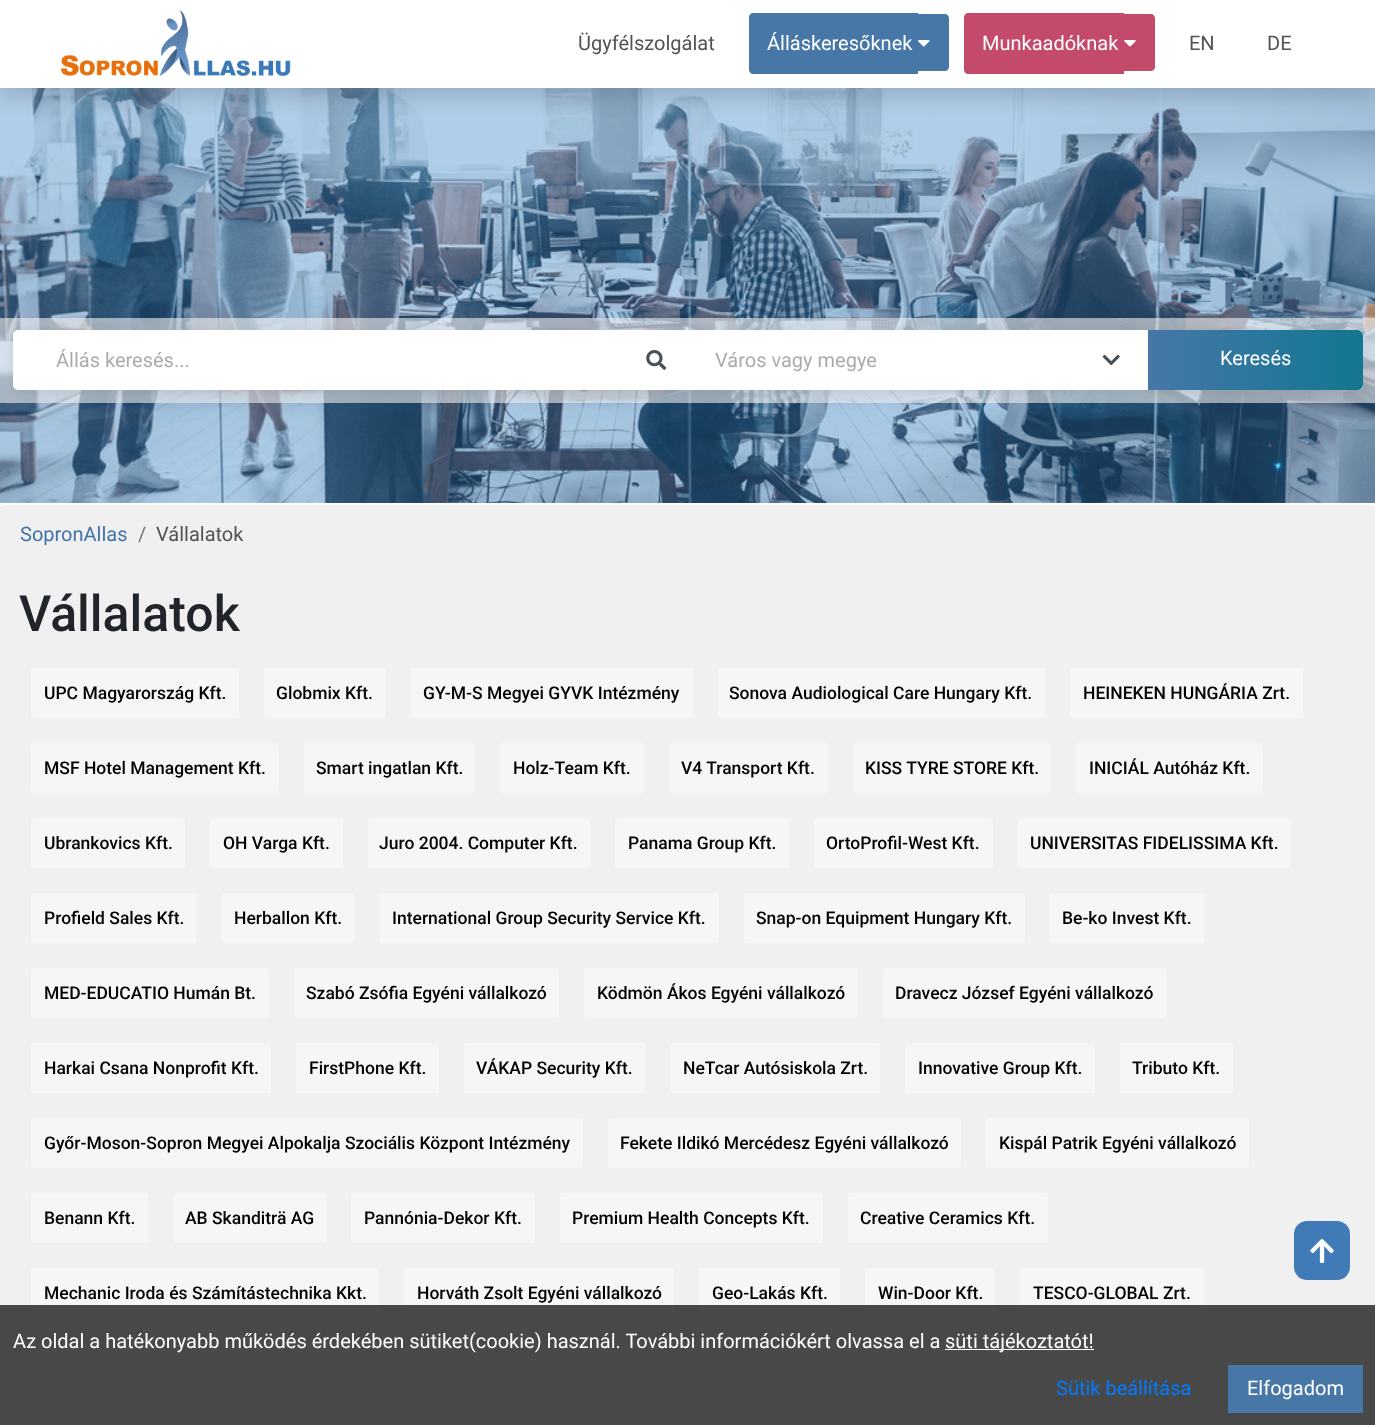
<svg xmlns="http://www.w3.org/2000/svg" width="1375" height="1425" viewBox="0 0 1375 1425">
  <defs>
    <linearGradient id="g1" gradientUnits="userSpaceOnUse" x1="1148" y1="360" x2="1363" y2="360"><stop offset="0" stop-color="rgb(71,119,167)"/><stop offset="0.25" stop-color="rgb(57,119,163)"/><stop offset="0.5" stop-color="rgb(43,119,157)"/><stop offset="0.75" stop-color="rgb(30,119,151)"/><stop offset="1" stop-color="rgb(20,118,144)"/></linearGradient>
  </defs>
  <rect width="100%" height="100%" fill="rgb(240,240,240)"/>
  <image x="0" y="88" width="1375" height="415" href="pic4.png"/>
  <rect x="0" y="10" width="1375" height="88" fill="rgba(0,0,0,0.15)" filter="blur(10px)"/>
  <rect x="0" y="0" width="1375" height="88" fill="rgb(255,255,255)"/>
  <image x="61" y="10" width="230" height="67" href="pic1.png"/>
  <text x="578" y="50" font-family="Roboto" font-size="20" fill="rgb(81,83,84)">Ügyfélszolgálat</text>
  <path d="M753 13H918V74H753C751 74 749 72 749 70V17C749 15 751 13 753 13Z" fill="rgb(71,119,167)"/>
  <path d="M918 14H945C947 14 949 16 949 18V67C949 69 947 71 945 71H918Z" fill="rgb(71,119,167)"/>
  <text x="767" y="50" font-family="Roboto" font-size="20" fill="rgb(255,255,255)">Álláskeresőknek</text>
  <image x="918" y="40" width="12" height="7" href="pic2.png"/>
  <path d="M968 13H1124V74H968C966 74 964 72 964 70V17C964 15 966 13 968 13Z" fill="rgb(196,74,107)"/>
  <path d="M1124 14H1151C1153 14 1155 16 1155 18V67C1155 69 1153 71 1151 71H1124Z" fill="rgb(196,74,107)"/>
  <text x="982" y="50" font-family="Roboto" font-size="20" fill="rgb(255,255,255)">Munkaadóknak</text>
  <image x="1124" y="40" width="12" height="7" href="pic3.png"/>
  <g font-family="Roboto" font-size="20" fill="rgb(81,83,84)">
    <text x="1189" y="50">EN</text>
    <text x="1267" y="50">DE</text>
  </g>
  <rect x="0" y="503" width="1375" height="3" fill="rgb(255,255,255)"/>
  <rect x="0" y="318" width="1375" height="85" fill="rgba(240,240,240,0.6)"/>
  <rect x="13" y="334" width="1350" height="60" rx="5" fill="rgba(0,0,0,0.07)" filter="blur(6px)"/>
  <rect x="13" y="330" width="1350" height="60" rx="5" fill="rgb(255,255,255)"/>
  <text x="56" y="367" font-family="Roboto" font-size="20" fill="rgb(167,172,177)">Állás keresés...</text>
  <image x="646" y="350" width="21" height="20" href="pic5.png"/>
  <text x="715" y="367" font-family="Roboto" font-size="20" fill="rgb(167,172,177)">Város vagy megye</text>
  <image x="1102" y="354" width="18" height="12" href="pic6.png"/>
  <path d="M1148 330H1357C1360.5 330 1363 332.5 1363 336V384C1363 387.5 1360.5 390 1357 390H1148Z" fill="url(#g1)"/>
  <text x="1220" y="365" font-family="Roboto" font-size="20" fill="rgb(255,255,255)">Keresés</text>
  <rect x="0" y="505" width="1375" height="60" rx="5" fill="rgb(240,240,240)"/>
  <text x="20" y="541" font-family="Roboto" font-size="20" fill="rgb(66,115,166)">SopronAllas</text>
  <text x="138" y="541" font-family="Roboto" font-size="20" fill="rgb(108,117,125)">/</text>
  <text x="156" y="541" font-family="Roboto" font-size="20" fill="rgb(81,83,84)">Vállalatok</text>
  <text x="19" y="631" font-family="Roboto" font-size="50" font-weight="500" fill="rgb(33,37,41)">Vállalatok</text>
  <rect x="31" y="668" width="208" height="50" rx="2.5" fill="rgb(246,246,246)"/>
  <text x="44" y="699" font-family="Roboto" font-size="17.5" font-weight="500" fill="rgb(0,0,0)">UPC Magyarország Kft.</text>
  <rect x="264" y="668" width="122" height="50" rx="2.5" fill="rgb(246,246,246)"/>
  <text x="276" y="699" font-family="Roboto" font-size="17.5" font-weight="500" fill="rgb(0,0,0)">Globmix Kft.</text>
  <rect x="411" y="668" width="282" height="50" rx="2.5" fill="rgb(246,246,246)"/>
  <text x="423" y="699" font-family="Roboto" font-size="17.5" font-weight="500" fill="rgb(0,0,0)">GY-M-S Megyei GYVK Intézmény</text>
  <rect x="718" y="668" width="327" height="50" rx="2.5" fill="rgb(246,246,246)"/>
  <text x="729" y="699" font-family="Roboto" font-size="17.5" font-weight="500" fill="rgb(0,0,0)">Sonova Audiological Care Hungary Kft.</text>
  <rect x="1070" y="668" width="233" height="50" rx="2.5" fill="rgb(246,246,246)"/>
  <text x="1083" y="699" font-family="Roboto" font-size="17.5" font-weight="500" fill="rgb(0,0,0)">HEINEKEN HUNGÁRIA Zrt.</text>
  <rect x="31" y="743" width="248" height="50" rx="2.5" fill="rgb(246,246,246)"/>
  <text x="44" y="774" font-family="Roboto" font-size="17.5" font-weight="500" fill="rgb(0,0,0)">MSF Hotel Management Kft.</text>
  <rect x="304" y="743" width="171" height="50" rx="2.5" fill="rgb(246,246,246)"/>
  <text x="316" y="774" font-family="Roboto" font-size="17.5" font-weight="500" fill="rgb(0,0,0)">Smart ingatlan Kft.</text>
  <rect x="500" y="743" width="144" height="50" rx="2.5" fill="rgb(246,246,246)"/>
  <text x="513" y="774" font-family="Roboto" font-size="17.5" font-weight="500" fill="rgb(0,0,0)">Holz-Team Kft.</text>
  <rect x="669" y="743" width="159" height="50" rx="2.5" fill="rgb(246,246,246)"/>
  <text x="681" y="774" font-family="Roboto" font-size="17.5" font-weight="500" fill="rgb(0,0,0)">V4 Transport Kft.</text>
  <rect x="853" y="743" width="198" height="50" rx="2.5" fill="rgb(246,246,246)"/>
  <text x="865" y="774" font-family="Roboto" font-size="17.5" font-weight="500" fill="rgb(0,0,0)">KISS TYRE STORE Kft.</text>
  <rect x="1076" y="743" width="187" height="50" rx="2.5" fill="rgb(246,246,246)"/>
  <text x="1089" y="774" font-family="Roboto" font-size="17.5" font-weight="500" fill="rgb(0,0,0)">INICIÁL Autóház Kft.</text>
  <rect x="31" y="818" width="154" height="50" rx="2.5" fill="rgb(246,246,246)"/>
  <text x="44" y="849" font-family="Roboto" font-size="17.5" font-weight="500" fill="rgb(0,0,0)">Ubrankovics Kft.</text>
  <rect x="210" y="818" width="133" height="50" rx="2.5" fill="rgb(246,246,246)"/>
  <text x="223" y="849" font-family="Roboto" font-size="17.5" font-weight="500" fill="rgb(0,0,0)">OH Varga Kft.</text>
  <rect x="368" y="818" width="222" height="50" rx="2.5" fill="rgb(246,246,246)"/>
  <text x="379" y="849" font-family="Roboto" font-size="17.5" font-weight="500" fill="rgb(0,0,0)">Juro 2004. Computer Kft.</text>
  <rect x="615" y="818" width="174" height="50" rx="2.5" fill="rgb(246,246,246)"/>
  <text x="628" y="849" font-family="Roboto" font-size="17.5" font-weight="500" fill="rgb(0,0,0)">Panama Group Kft.</text>
  <rect x="814" y="818" width="179" height="50" rx="2.5" fill="rgb(246,246,246)"/>
  <text x="826" y="849" font-family="Roboto" font-size="17.5" font-weight="500" fill="rgb(0,0,0)">OrtoProfil-West Kft.</text>
  <rect x="1018" y="818" width="273" height="50" rx="2.5" fill="rgb(246,246,246)"/>
  <text x="1030" y="849" font-family="Roboto" font-size="17.5" font-weight="500" fill="rgb(0,0,0)">UNIVERSITAS FIDELISSIMA Kft.</text>
  <rect x="31" y="893" width="165" height="50" rx="2.5" fill="rgb(246,246,246)"/>
  <text x="44" y="924" font-family="Roboto" font-size="17.5" font-weight="500" fill="rgb(0,0,0)">Profield Sales Kft.</text>
  <rect x="221" y="893" width="134" height="50" rx="2.5" fill="rgb(246,246,246)"/>
  <text x="234" y="924" font-family="Roboto" font-size="17.5" font-weight="500" fill="rgb(0,0,0)">Herballon Kft.</text>
  <rect x="380" y="893" width="339" height="50" rx="2.5" fill="rgb(246,246,246)"/>
  <text x="392" y="924" font-family="Roboto" font-size="17.5" font-weight="500" fill="rgb(0,0,0)">International Group Security Service Kft.</text>
  <rect x="744" y="893" width="281" height="50" rx="2.5" fill="rgb(246,246,246)"/>
  <text x="756" y="924" font-family="Roboto" font-size="17.5" font-weight="500" fill="rgb(0,0,0)">Snap-on Equipment Hungary Kft.</text>
  <rect x="1050" y="893" width="154" height="50" rx="2.5" fill="rgb(246,246,246)"/>
  <text x="1062" y="924" font-family="Roboto" font-size="17.5" font-weight="500" fill="rgb(0,0,0)">Be-ko Invest Kft.</text>
  <rect x="31" y="968" width="238" height="50" rx="2.5" fill="rgb(246,246,246)"/>
  <text x="44" y="999" font-family="Roboto" font-size="17.5" font-weight="500" fill="rgb(0,0,0)">MED-EDUCATIO Humán Bt.</text>
  <rect x="294" y="968" width="265" height="50" rx="2.5" fill="rgb(246,246,246)"/>
  <text x="306" y="999" font-family="Roboto" font-size="17.5" font-weight="500" fill="rgb(0,0,0)">Szabó Zsófia Egyéni vállalkozó</text>
  <rect x="584" y="968" width="274" height="50" rx="2.5" fill="rgb(246,246,246)"/>
  <text x="597" y="999" font-family="Roboto" font-size="17.5" font-weight="500" fill="rgb(0,0,0)">Ködmön Ákos Egyéni vállalkozó</text>
  <rect x="883" y="968" width="283" height="50" rx="2.5" fill="rgb(246,246,246)"/>
  <text x="895" y="999" font-family="Roboto" font-size="17.5" font-weight="500" fill="rgb(0,0,0)">Dravecz József Egyéni vállalkozó</text>
  <rect x="31" y="1043" width="240" height="50" rx="2.5" fill="rgb(246,246,246)"/>
  <text x="44" y="1074" font-family="Roboto" font-size="17.5" font-weight="500" fill="rgb(0,0,0)">Harkai Csana Nonprofit Kft.</text>
  <rect x="296" y="1043" width="143" height="50" rx="2.5" fill="rgb(246,246,246)"/>
  <text x="309" y="1074" font-family="Roboto" font-size="17.5" font-weight="500" fill="rgb(0,0,0)">FirstPhone Kft.</text>
  <rect x="464" y="1043" width="181" height="50" rx="2.5" fill="rgb(246,246,246)"/>
  <text x="476" y="1074" font-family="Roboto" font-size="17.5" font-weight="500" fill="rgb(0,0,0)">VÁKAP Security Kft.</text>
  <rect x="670" y="1043" width="210" height="50" rx="2.5" fill="rgb(246,246,246)"/>
  <text x="683" y="1074" font-family="Roboto" font-size="17.5" font-weight="500" fill="rgb(0,0,0)">NeTcar Autósiskola Zrt.</text>
  <rect x="905" y="1043" width="190" height="50" rx="2.5" fill="rgb(246,246,246)"/>
  <text x="918" y="1074" font-family="Roboto" font-size="17.5" font-weight="500" fill="rgb(0,0,0)">Innovative Group Kft.</text>
  <rect x="1120" y="1043" width="113" height="50" rx="2.5" fill="rgb(246,246,246)"/>
  <text x="1132" y="1074" font-family="Roboto" font-size="17.5" font-weight="500" fill="rgb(0,0,0)">Tributo Kft.</text>
  <rect x="31" y="1118" width="552" height="50" rx="2.5" fill="rgb(246,246,246)"/>
  <text x="44" y="1149" font-family="Roboto" font-size="17.5" font-weight="500" fill="rgb(0,0,0)">Győr-Moson-Sopron Megyei Alpokalja Szociális Központ Intézmény</text>
  <rect x="608" y="1118" width="353" height="50" rx="2.5" fill="rgb(246,246,246)"/>
  <text x="620" y="1149" font-family="Roboto" font-size="17.5" font-weight="500" fill="rgb(0,0,0)">Fekete Ildikó Mercédesz Egyéni vállalkozó</text>
  <rect x="986" y="1118" width="263" height="50" rx="2.5" fill="rgb(246,246,246)"/>
  <text x="999" y="1149" font-family="Roboto" font-size="17.5" font-weight="500" fill="rgb(0,0,0)">Kispál Patrik Egyéni vállalkozó</text>
  <rect x="31" y="1193" width="117" height="50" rx="2.5" fill="rgb(246,246,246)"/>
  <text x="44" y="1224" font-family="Roboto" font-size="17.5" font-weight="500" fill="rgb(0,0,0)">Benann Kft.</text>
  <rect x="173" y="1193" width="153" height="50" rx="2.5" fill="rgb(246,246,246)"/>
  <text x="185" y="1224" font-family="Roboto" font-size="17.5" font-weight="500" fill="rgb(0,0,0)">AB Skanditrä AG</text>
  <rect x="351" y="1193" width="184" height="50" rx="2.5" fill="rgb(246,246,246)"/>
  <text x="364" y="1224" font-family="Roboto" font-size="17.5" font-weight="500" fill="rgb(0,0,0)">Pannónia-Dekor Kft.</text>
  <rect x="560" y="1193" width="263" height="50" rx="2.5" fill="rgb(246,246,246)"/>
  <text x="572" y="1224" font-family="Roboto" font-size="17.5" font-weight="500" fill="rgb(0,0,0)">Premium Health Concepts Kft.</text>
  <rect x="848" y="1193" width="200" height="50" rx="2.5" fill="rgb(246,246,246)"/>
  <text x="860" y="1224" font-family="Roboto" font-size="17.5" font-weight="500" fill="rgb(0,0,0)">Creative Ceramics Kft.</text>
  <rect x="31" y="1268" width="348" height="50" rx="2.5" fill="rgb(246,246,246)"/>
  <text x="44" y="1299" font-family="Roboto" font-size="17.5" font-weight="500" fill="rgb(0,0,0)">Mechanic Iroda és Számítástechnika Kkt.</text>
  <rect x="404" y="1268" width="270" height="50" rx="2.5" fill="rgb(246,246,246)"/>
  <text x="417" y="1299" font-family="Roboto" font-size="17.5" font-weight="500" fill="rgb(0,0,0)">Horváth Zsolt Egyéni vállalkozó</text>
  <rect x="699" y="1268" width="141" height="50" rx="2.5" fill="rgb(246,246,246)"/>
  <text x="712" y="1299" font-family="Roboto" font-size="17.5" font-weight="500" fill="rgb(0,0,0)">Geo-Lakás Kft.</text>
  <rect x="865" y="1268" width="130" height="50" rx="2.5" fill="rgb(246,246,246)"/>
  <text x="878" y="1299" font-family="Roboto" font-size="17.5" font-weight="500" fill="rgb(0,0,0)">Win-Door Kft.</text>
  <rect x="1020" y="1268" width="184" height="50" rx="2.5" fill="rgb(246,246,246)"/>
  <text x="1033" y="1299" font-family="Roboto" font-size="17.5" font-weight="500" fill="rgb(0,0,0)">TESCO-GLOBAL Zrt.</text>
  <rect x="31" y="1343" width="149" height="50" rx="2.5" fill="rgb(246,246,246)"/>
  <rect x="205" y="1343" width="306" height="50" rx="2.5" fill="rgb(246,246,246)"/>
  <rect x="536" y="1343" width="193" height="50" rx="2.5" fill="rgb(246,246,246)"/>
  <rect x="754" y="1343" width="150" height="50" rx="2.5" fill="rgb(246,246,246)"/>
  <rect x="929" y="1343" width="241" height="50" rx="2.5" fill="rgb(246,246,246)"/>
  <rect x="1195" y="1343" width="123" height="50" rx="2.5" fill="rgb(246,246,246)"/>
  <rect x="31" y="1418" width="290" height="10" rx="2.5" fill="rgb(246,246,246)"/>
  <rect x="0" y="1305" width="1375" height="120" fill="rgba(0,0,0,0.7)"/>
  <text x="13" y="1348" font-family="Roboto" font-size="20" fill="rgb(255,255,255)">Az oldal a hatékonyabb működés érdekében sütiket(cookie) használ. További információkért olvassa el a</text>
  <rect x="945" y="1349" width="149" height="1" fill="rgb(255,255,255)"/>
  <text x="945" y="1348" font-family="Roboto" font-size="20" fill="rgb(255,255,255)">süti tájékoztatót!</text>
  <text x="1056" y="1395" font-family="Roboto" font-size="20" fill="rgb(0,123,255)">Sütik beállítása</text>
  <rect x="1228" y="1365" width="135" height="48" fill="rgb(71,119,167)"/>
  <text x="1247" y="1395" font-family="Roboto" font-size="20" fill="rgb(255,255,255)">Elfogadom</text>
  <rect x="1294" y="1221" width="56" height="59" rx="13" fill="rgb(65,123,183)"/>
  <image x="1310" y="1238" width="24" height="25" href="pic7.png"/>
</svg>
